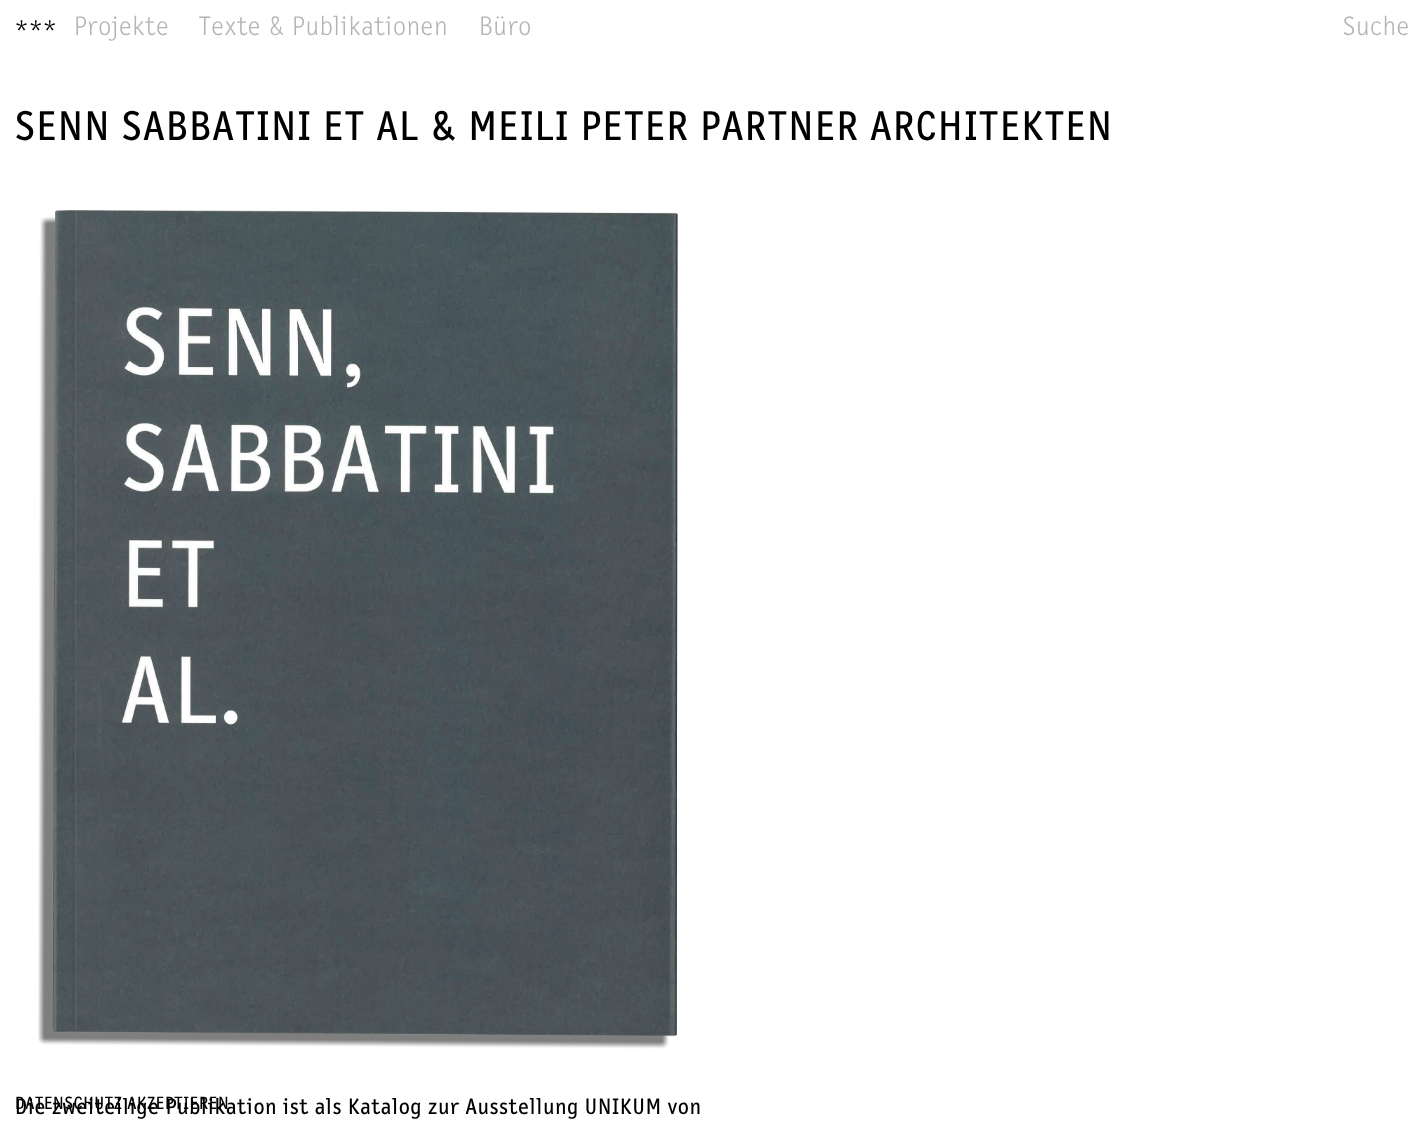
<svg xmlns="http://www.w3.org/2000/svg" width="1425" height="1127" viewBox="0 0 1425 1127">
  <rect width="100%" height="100%" fill="rgb(255,255,255)"/>
  <text x="15" y="45" font-family="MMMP" font-size="33" font-weight="300" fill="rgb(0,0,0)">***</text>
  <g font-family="MMMP" font-size="27" font-weight="300" fill="rgb(180,180,180)">
    <text x="74" y="35">Projekte</text>
    <text x="199" y="35">Texte &amp; Publikationen</text>
    <text x="479" y="35">Büro</text>
    <text x="1343" y="35">Suche</text>
  </g>
  <text x="15" y="140" font-family="MMMP" font-size="42" fill="rgb(0,0,0)">SENN SABBATINI ET AL &amp; MEILI PETER PARTNER ARCHITEKTEN</text>
  <image x="38" y="210" width="640" height="839" href="pic1.png"/>
  <text x="15" y="1114" font-family="MMMP" font-size="22.5" fill="rgb(0,0,0)">Die zweiteilige Publikation ist als Katalog zur Ausstellung UNIKUM von</text>
  <text x="15" y="1109" font-family="MMMP" font-size="18" fill="rgb(0,0,0)">DATENSCHUTZ AKZEPTIEREN</text>
</svg>
